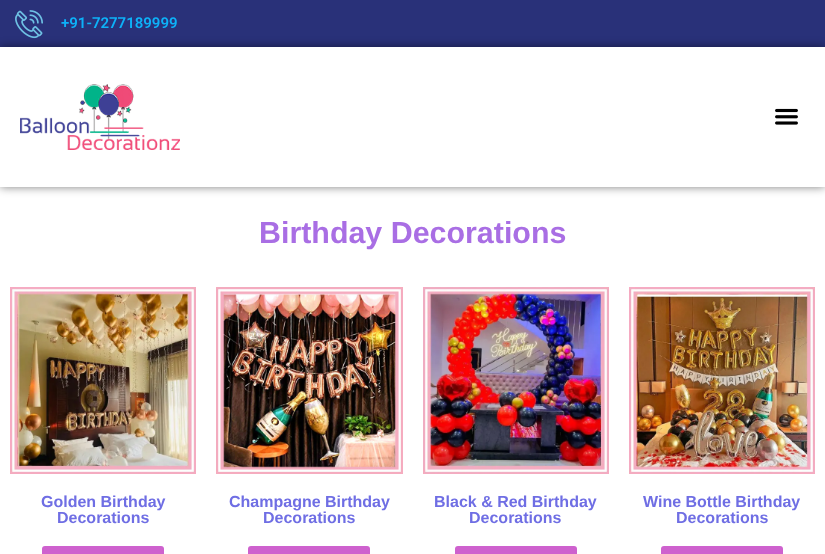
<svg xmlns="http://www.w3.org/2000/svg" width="825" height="554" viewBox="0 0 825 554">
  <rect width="100%" height="100%" fill="rgb(255,255,255)"/>
  <rect x="0" y="0" width="825" height="47" fill="rgb(41,49,121)"/>
  <image x="15" y="10" width="28" height="29" href="pic1.png"/>
  <text x="61" y="28" font-family="Roboto" font-size="15" font-weight="600" fill="rgb(13,177,248)">+91-7277189999</text>
  <rect x="0" y="47" width="825" height="140" fill="rgba(0,0,0,0.5)" filter="blur(5px)"/>
  <rect x="0" y="47" width="825" height="140" fill="rgb(255,255,255)"/>
  <image x="20" y="84" width="160" height="66" href="pic2.png"/>
  <image x="775" y="108" width="23" height="17" href="pic3.png"/>
  <text x="259" y="243" font-family="Liberation Sans" font-size="30.4" font-weight="bold" fill="rgb(169,110,228)">Birthday Decorations</text>
  <image x="10" y="287" width="186" height="187" href="pic4.png"/>
  <g font-family="Liberation Sans" font-size="16" font-weight="bold" fill="rgb(111,110,228)">
    <text x="41" y="507">Golden Birthday</text>
    <text x="57" y="523">Decorations</text>
  </g>
  <rect x="42" y="546" width="122" height="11" rx="3" fill="rgb(206,97,206)"/>
  <image x="216" y="287" width="187" height="187" href="pic5.png"/>
  <g font-family="Liberation Sans" font-size="16" font-weight="bold" fill="rgb(111,110,228)">
    <text x="229" y="507">Champagne Birthday</text>
    <text x="263" y="523">Decorations</text>
  </g>
  <rect x="248" y="546" width="122" height="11" rx="3" fill="rgb(206,97,206)"/>
  <image x="423" y="287" width="186" height="187" href="pic6.png"/>
  <g font-family="Liberation Sans" font-size="16" font-weight="bold" fill="rgb(111,110,228)">
    <text x="434" y="507">Black &amp; Red Birthday</text>
    <text x="469" y="523">Decorations</text>
  </g>
  <rect x="455" y="546" width="122" height="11" rx="3" fill="rgb(206,97,206)"/>
  <image x="629" y="287" width="186" height="187" href="pic7.png"/>
  <g font-family="Liberation Sans" font-size="16" font-weight="bold" fill="rgb(111,110,228)">
    <text x="643" y="507">Wine Bottle Birthday</text>
    <text x="676" y="523">Decorations</text>
  </g>
  <rect x="661" y="546" width="122" height="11" rx="3" fill="rgb(206,97,206)"/>
</svg>
